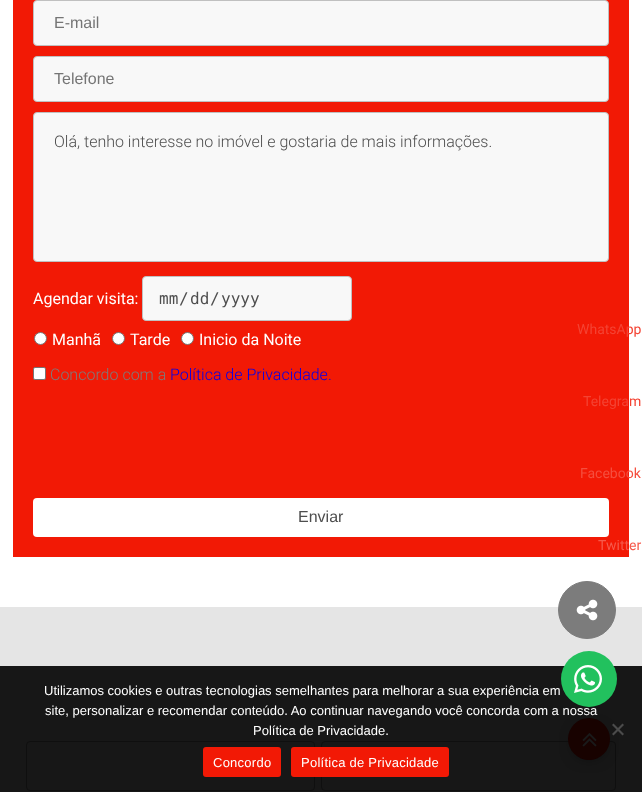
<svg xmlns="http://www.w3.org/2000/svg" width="642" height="792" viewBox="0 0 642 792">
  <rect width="100%" height="100%" fill="rgb(255,255,255)"/>
  <rect x="13" y="0" width="616" height="557" fill="rgb(242,25,5)"/>
  <rect x="33.5" y="0.5" width="575" height="45" rx="3.5" fill="rgb(248,248,248)" stroke="rgb(192,192,192)"/>
  <text x="54" y="28" font-family="Liberation Sans" font-size="16" fill="rgb(117,117,117)">E-mail</text>
  <rect x="33.5" y="56.5" width="575" height="45" rx="3.5" fill="rgb(248,248,248)" stroke="rgb(192,192,192)"/>
  <text x="54" y="84" font-family="Liberation Sans" font-size="16" fill="rgb(117,117,117)">Telefone</text>
  <rect x="33.5" y="112.5" width="575" height="149" rx="3.5" fill="rgb(248,248,248)" stroke="rgb(192,192,192)"/>
  <text x="54" y="147" font-family="Roboto" font-size="16" font-weight="300" fill="rgb(78,78,78)">Olá, tenho interesse no imóvel e gostaria de mais informações.</text>
  <text x="33" y="304" font-family="Roboto" font-size="16" fill="rgb(255,255,255)">Agendar visita:</text>
  <rect x="142.5" y="276.5" width="209" height="44" rx="3.5" fill="rgb(248,248,248)" stroke="rgb(192,192,192)"/>
  <g font-family="DejaVu Sans Mono" font-size="16" fill="rgb(78,78,78)">
    <text x="159" y="304">mm</text>
    <text x="179" y="304">/</text>
    <text x="190" y="304">dd</text>
    <text x="210" y="304">/</text>
    <text x="221" y="304">yyyy</text>
  </g>
  <circle cx="40.5" cy="338.5" r="6" fill="rgb(255,255,255)" stroke="rgb(118,118,118)"/>
  <text x="52" y="345" font-family="Roboto" font-size="16" fill="rgb(255,255,255)">Manhã</text>
  <circle cx="118.5" cy="338.5" r="6" fill="rgb(255,255,255)" stroke="rgb(118,118,118)"/>
  <text x="130" y="345" font-family="Roboto" font-size="16" fill="rgb(255,255,255)">Tarde</text>
  <circle cx="187.5" cy="338.5" r="6" fill="rgb(255,255,255)" stroke="rgb(118,118,118)"/>
  <text x="199" y="345" font-family="Roboto" font-size="16" fill="rgb(255,255,255)">Inicio da Noite</text>
  <rect x="33.5" y="367.5" width="12" height="12" rx="1.5" fill="rgb(255,255,255)" stroke="rgb(118,118,118)"/>
  <text x="50" y="380" font-family="Roboto" font-size="16" font-weight="300" fill="rgb(124,124,124)">Concordo com a</text>
  <text x="170" y="380" font-family="Roboto" font-size="16" font-weight="300" fill="rgb(0,0,238)">Política de Privacidade.</text>
  <rect x="33" y="498" width="576" height="39" rx="4" fill="rgb(255,255,255)"/>
  <text x="298" y="522" font-family="Liberation Sans" font-size="16" fill="rgb(78,78,78)">Enviar</text>
  <g font-family="Roboto" font-size="14" fill="rgb(244,67,51)">
    <text x="577" y="334">WhatsApp</text>
    <text x="583" y="406">Telegram</text>
  </g>
  <text x="580" y="478" font-family="Roboto" font-size="14" fill="rgb(245,78,62)">Facebook</text>
  <text x="598" y="550" font-family="Roboto" font-size="14" fill="rgb(246,89,75)">Twitter</text>
  <rect x="0" y="607" width="642" height="59" fill="rgb(229,229,229)"/>
  <circle cx="587" cy="610" r="28.5" fill="rgb(124,124,124)" stroke="rgb(124,124,124)"/>
  <image x="576" y="599" width="22" height="22" href="pic1.png"/>
  <rect x="0" y="666" width="642" height="126" fill="rgb(23,23,23)"/>
  <rect x="321.5" y="741.5" width="294" height="49" rx="3.5" fill="none" stroke="rgb(15,15,15)"/>
  <rect x="578" y="732" width="22" height="22" rx="11" fill="rgb(3,3,3)" filter="blur(8.5px)"/>
  <circle cx="589" cy="739" r="21" fill="rgb(24,2,0)"/>
  <image x="582" y="733" width="15" height="14" href="pic2.png"/>
  <rect x="26.5" y="741.5" width="288" height="49" rx="3.5" fill="none" stroke="rgb(15,15,15)"/>
  <text x="45" y="715" font-family="Liberation Sans" font-size="13" fill="rgb(255,255,255)">site, personalizar e recomendar conteúdo. Ao continuar navegando você concorda com a nossa</text>
  <circle cx="589" cy="679" r="28" fill="rgb(34,193,94)"/>
  <image x="574" y="665" width="28" height="28" href="pic3.png"/>
  <g font-family="Liberation Sans" font-size="13" fill="rgb(255,255,255)">
    <text x="44" y="695">Utilizamos cookies e outras tecnologias semelhantes para melhorar a sua experiência em</text>
    <text x="253" y="735">Política de Privacidade.</text>
  </g>
  <path d="M622.5 723.5L624 725L613.5 735.5L612 734Z" fill="rgb(75,75,75)"/>
  <path d="M612 725L613.5 723.5L624 734L622.5 735.5Z" fill="rgb(75,75,75)"/>
  <rect x="203" y="747" width="78" height="30" rx="3" fill="rgb(242,25,5)"/>
  <text x="213" y="767" font-family="Liberation Sans" font-size="13" letter-spacing="0.25" fill="rgb(255,255,255)">Concordo</text>
  <rect x="291" y="747" width="158" height="30" rx="3" fill="rgb(242,25,5)"/>
  <text x="301" y="767" font-family="Liberation Sans" font-size="13" letter-spacing="0.25" fill="rgb(255,255,255)">Política de Privacidade</text>
</svg>
